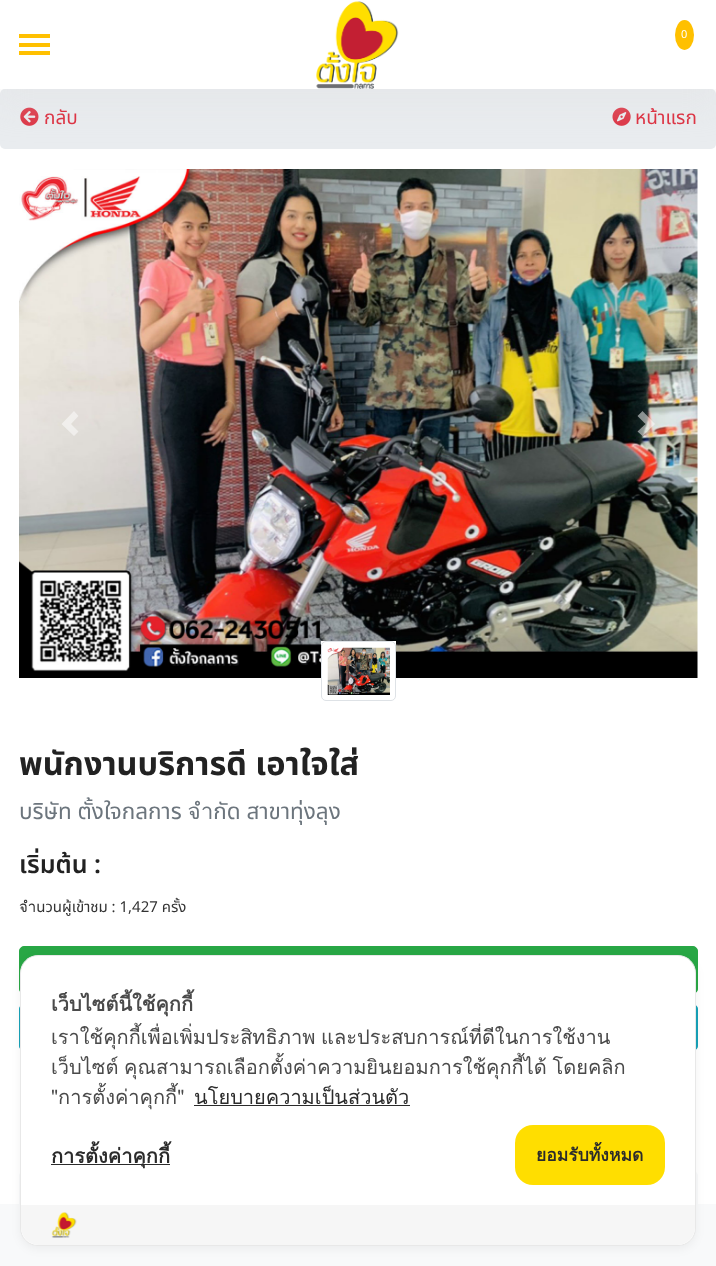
<svg xmlns="http://www.w3.org/2000/svg" width="716" height="1266" viewBox="0 0 716 1266">
  <rect width="100%" height="100%" fill="rgb(255,255,255)"/>
  <rect x="0" y="89" width="716" height="60" rx="5" fill="rgb(233,236,239)"/>
  <image x="20" y="107" width="19" height="19" href="pic2.png"/>
  <image x="612" y="107" width="19" height="19" href="pic3.png"/>
  <rect x="-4" y="9" width="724" height="96" fill="rgba(221,221,221,0.3)" filter="blur(17px)"/>
  <rect x="0" y="0" width="716" height="89" fill="rgb(255,255,255)"/>
  <rect x="19" y="34" width="31" height="4" fill="rgb(255,192,0)"/>
  <rect x="19" y="43" width="31" height="4" fill="rgb(255,192,0)"/>
  <rect x="19" y="51" width="31" height="4" fill="rgb(255,192,0)"/>
  <image x="316" y="1" width="83" height="88" href="pic1.png"/>
  <ellipse cx="684.5" cy="35" rx="9.5" ry="15" fill="rgb(255,192,0)"/>
  <text x="681" y="38" font-family="Noto Sans Thai" font-size="11" fill="rgb(255,255,255)">0</text>
  <g font-family="Noto Sans Thai" font-size="19" fill="rgb(220,53,69)">
    <text x="44" y="124">กลับ</text>
    <text x="635" y="124">หน้าแรก</text>
  </g>
  <image x="19" y="169" width="679" height="509" href="pic4.png"/>
  <path d="M74 411L61.5 424L74 436L78.5 431.5L71 424L78.5 416Z" fill="rgba(255,255,255,0.5)"/>
  <path d="M642.5 411L637.5 416L645.5 424L637.5 431.5L642.5 436L655 424Z" fill="rgba(255,255,255,0.5)"/>
  <rect x="321" y="641" width="75" height="4" fill="rgb(255,255,255)"/>
  <rect x="321.5" y="641.5" width="74" height="59" rx="4.5" fill="rgb(255,255,255)" stroke="rgb(222,226,230)"/>
  <image x="327" y="647" width="63" height="48" href="pic5.png"/>
  <text x="19" y="775" font-family="Noto Sans Thai" font-size="32.5" font-weight="bold" fill="rgb(34,34,34)">พนักงานบริการดี เอาใจใส่</text>
  <text x="19" y="819" font-family="Noto Sans Thai" font-size="22.5" fill="rgb(108,117,125)">บริษัท ตั้งใจกลการ จำกัด สาขาทุ่งลุง</text>
  <text x="19" y="873" font-family="Noto Sans Thai" font-size="25" font-weight="600" fill="rgb(34,34,34)">เริ่มต้น :</text>
  <text x="19" y="912" font-family="Noto Sans Thai" font-size="15" fill="rgb(51,51,51)">จำนวนผู้เข้าชม : 1,427 ครั้ง</text>
  <rect x="19.5" y="946.5" width="678" height="47" rx="4.5" fill="rgb(40,167,69)" stroke="rgb(40,167,69)"/>
  <rect x="19.5" y="1004.5" width="678" height="46" rx="4.5" fill="rgb(23,162,184)" stroke="rgb(23,162,184)"/>
  <rect x="19" y="1171" width="679" height="48" rx="5" fill="rgb(248,249,250)"/>
  <rect x="0" y="1204" width="716" height="62" fill="rgb(248,249,250)"/>
  <rect x="20" y="958" width="676" height="291" rx="18" fill="rgba(0,0,0,0.05)" filter="blur(5px)"/>
  <rect x="20.5" y="955.5" width="675" height="290" rx="17.5" fill="rgb(255,255,255)" stroke="rgb(232,232,232)"/>
  <text x="51" y="1011" font-family="Loma" font-size="20" font-weight="bold" fill="rgb(74,74,74)">เว็บไซต์นี้ใช้คุกกี้</text>
  <g font-family="Loma" font-size="20" fill="rgb(74,74,74)">
    <text>
      <tspan x="51" y="1044" word-spacing="-1">เราใช้คุกกี้เพื่อเพิ่มประสิทธิภาพ และประสบการณ์ที่ดีในการใช้งาน</tspan>
      <tspan x="51" y="1074" word-spacing="-1">เว็บไซต์ คุณสามารถเลือกตั้งค่าความยินยอมการใช้คุกกี้ได้ โดยคลิก</tspan>
      <tspan x="51" y="1104">"การตั้งค่าคุกกี้"</tspan>
    </text>
  </g>
  <text x="194" y="1104" font-family="Loma" font-size="20" fill="rgb(43,43,43)">นโยบายความเป็นส่วนตัว</text>
  <rect x="194" y="1105" width="216" height="1" fill="rgb(43,43,43)"/>
  <rect x="51" y="1164" width="119" height="1" fill="rgb(43,43,43)"/>
  <text x="51" y="1163" font-family="Loma" font-size="20" font-weight="bold" fill="rgb(43,43,43)">การตั้งค่าคุกกี้</text>
  <rect x="515" y="1125" width="150" height="60" rx="18" fill="rgb(255,222,0)"/>
  <text x="536" y="1161" font-family="Loma" font-size="17.5" font-weight="bold" fill="rgb(43,43,43)">ยอมรับทั้งหมด</text>
  <path d="M21 1205H695V1227C695 1237 687 1245 677 1245H39C29 1245 21 1237 21 1227Z" fill="rgb(246,246,246)"/>
  <image x="51" y="1212" width="26" height="26" href="pic6.png"/>
</svg>
